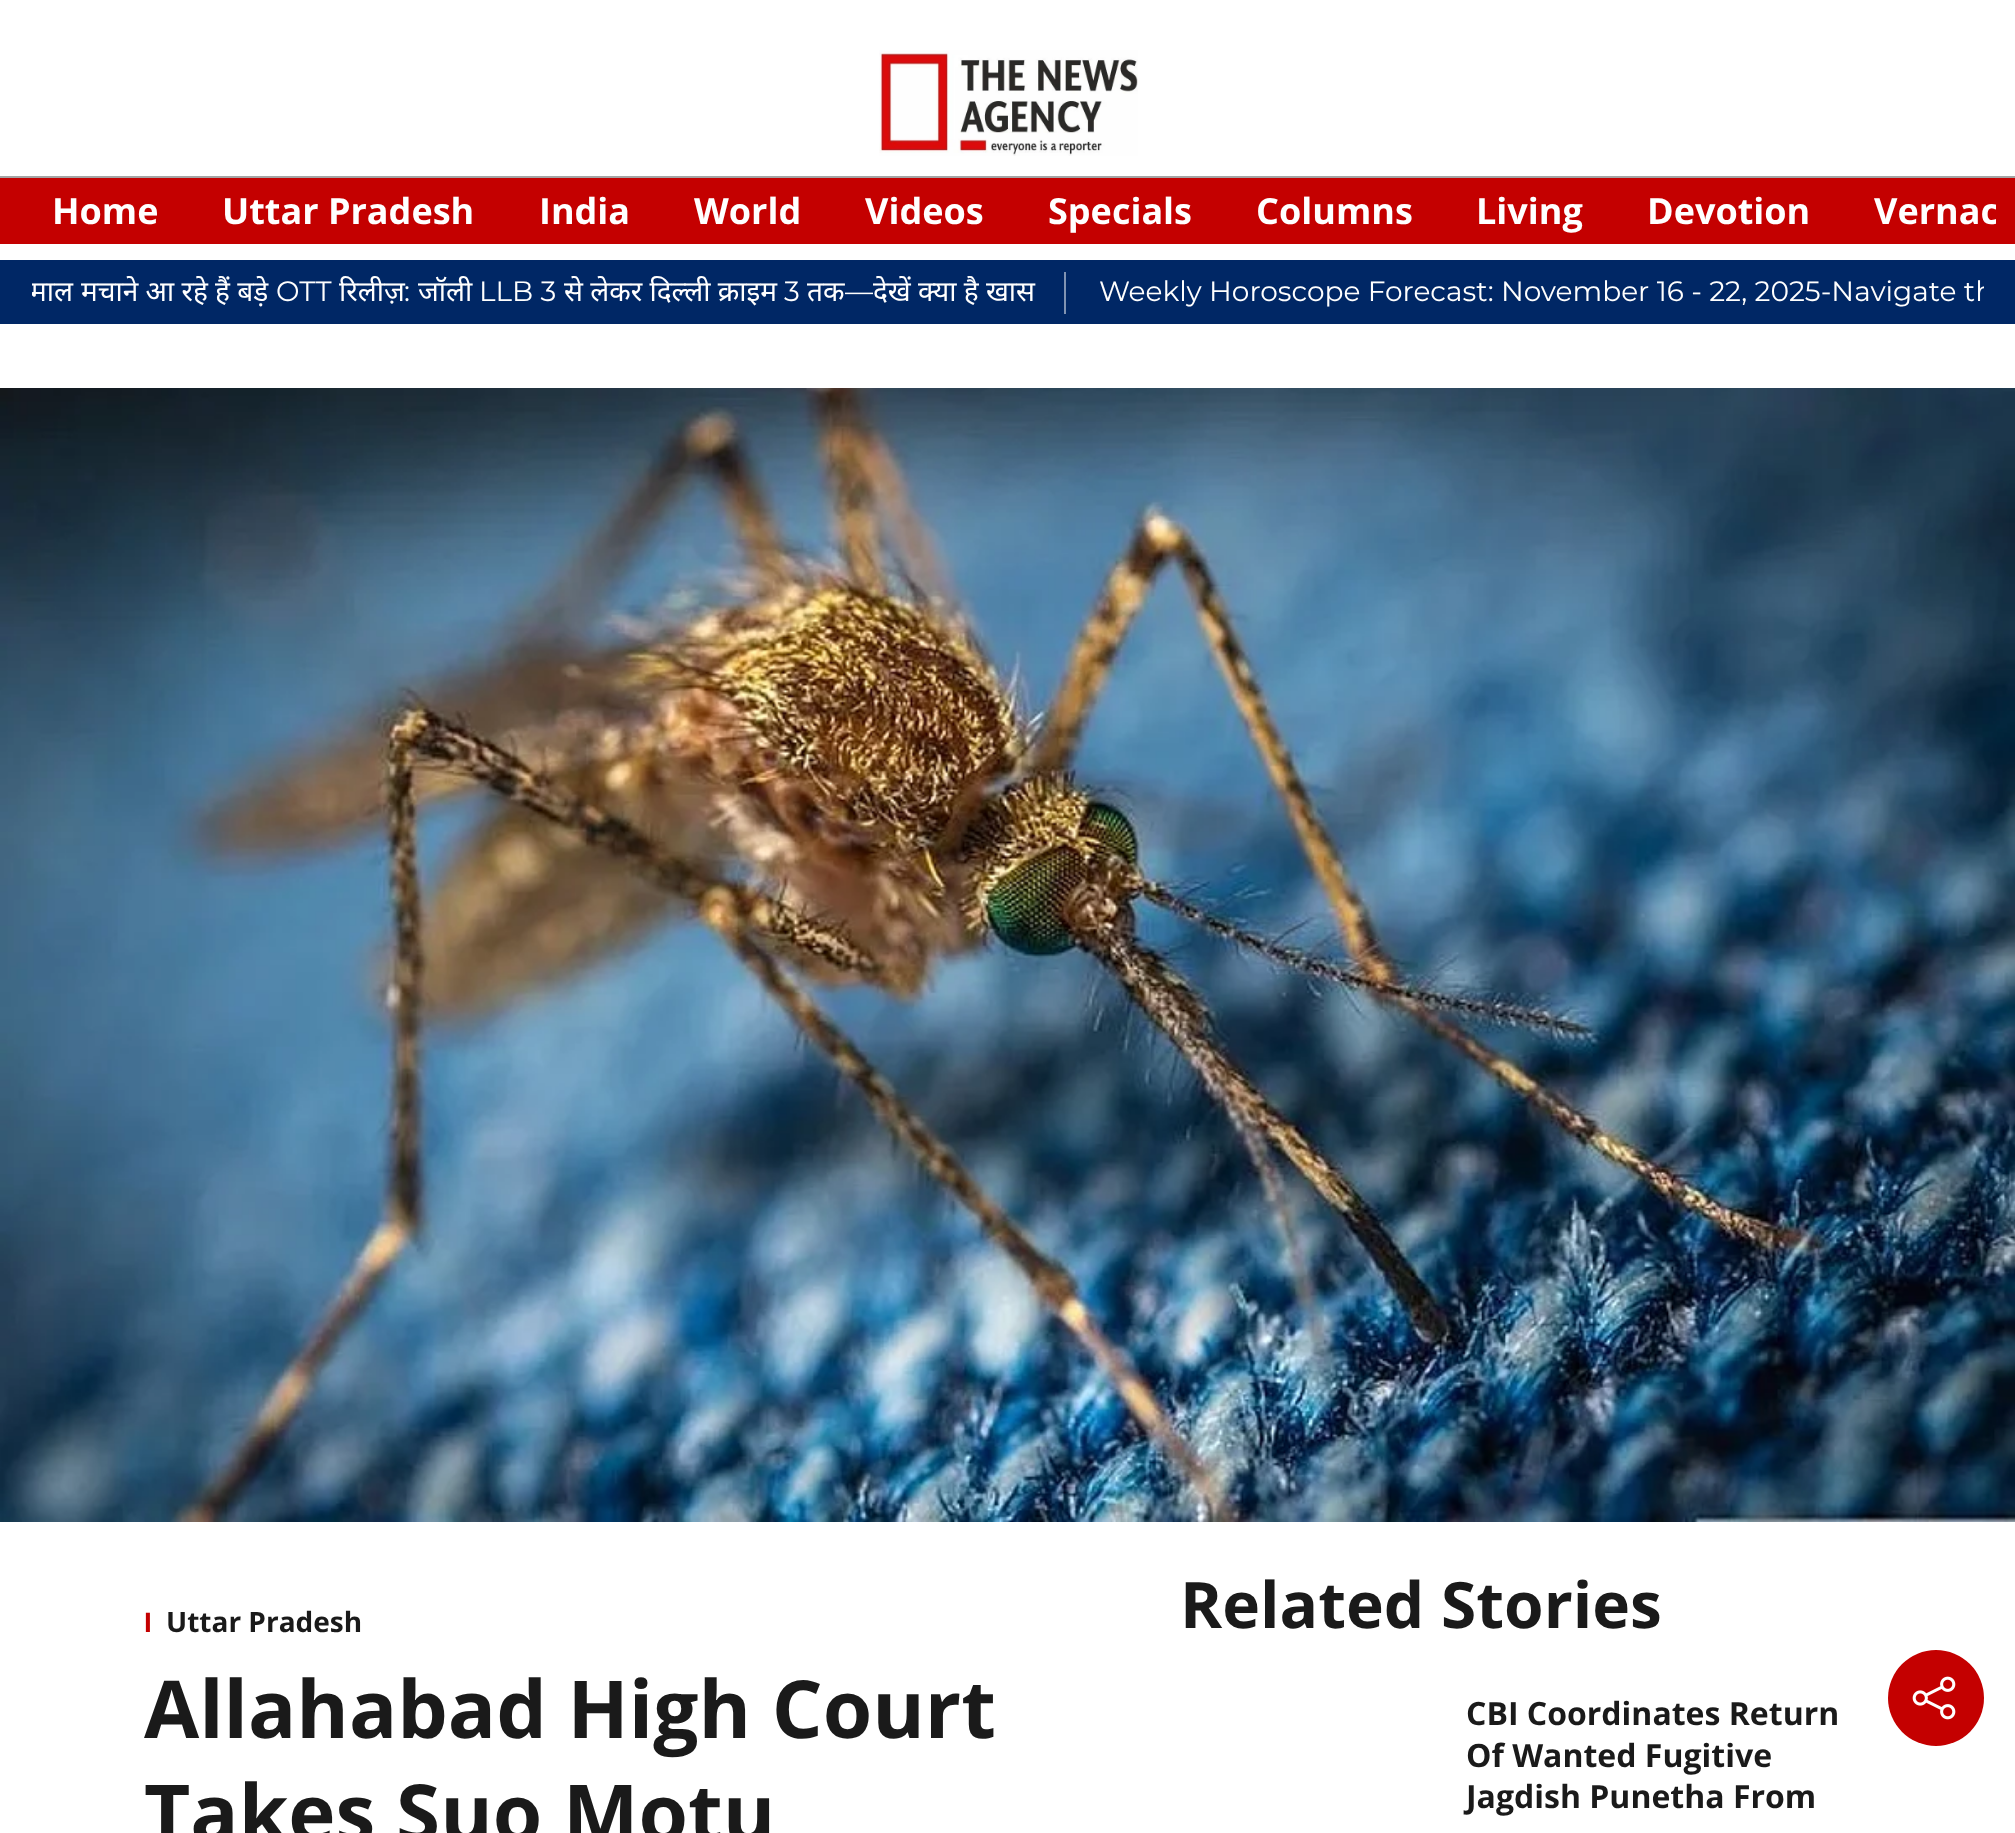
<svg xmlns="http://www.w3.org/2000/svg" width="2015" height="1833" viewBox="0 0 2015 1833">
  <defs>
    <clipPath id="clip1"><rect x="20" y="172" width="1976" height="78"/></clipPath>
    <clipPath id="clip2"><rect x="32" y="272" width="1952" height="42"/></clipPath>
  </defs>
  <rect width="100%" height="100%" fill="rgb(255,255,255)"/>
  <rect x="0" y="176" width="2015" height="2" fill="rgb(164,164,164)"/>
  <image x="879" y="50" width="259" height="106" href="pic1.png"/>
  <rect x="0" y="178" width="2015" height="66" fill="rgb(196,0,0)"/>
  <g font-family="Open Sans" font-size="36" font-weight="bold" fill="rgb(255,255,255)">
    <text x="52" y="224">Home</text>
    <text x="222" y="224">Uttar Pradesh</text>
    <text x="539" y="224">India</text>
    <text x="694" y="224">World</text>
    <text x="865" y="224">Videos</text>
    <text x="1048" y="224">Specials</text>
    <text x="1256" y="224">Columns</text>
    <text x="1476" y="224">Living</text>
    <text x="1647" y="224">Devotion</text>
  </g>
  <g clip-path="url(#clip1)">
    <text x="1874" y="224" font-family="Open Sans" font-size="36" font-weight="bold" fill="rgb(255,255,255)">Vernac</text>
  </g>
  <rect x="0" y="260" width="2015" height="64" fill="rgb(0,39,101)"/>
  <g clip-path="url(#clip2)">
    <text x="30" y="301" font-family="Noto Sans" font-size="28" fill="rgb(255,255,255)">माल</text>
  </g>
  <text x="81" y="301" font-family="Noto Sans" font-size="28" fill="rgb(255,255,255)">मचाने आ रहे हैं बड़े</text>
  <text x="276" y="301" font-family="Montserrat" font-size="28" font-weight="100" fill="rgb(255,255,255)">OTT</text>
  <text x="339" y="301" font-family="Noto Sans" font-size="28" fill="rgb(255,255,255)">रिलीज़</text>
  <text x="404" y="301" font-family="Montserrat" font-size="28" font-weight="100" fill="rgb(255,255,255)">:</text>
  <text x="418" y="301" font-family="Noto Sans" font-size="28" fill="rgb(255,255,255)">जॉली</text>
  <text x="479" y="301" font-family="Montserrat" font-size="28" font-weight="100" fill="rgb(255,255,255)">LLB 3</text>
  <text x="564" y="301" font-family="Noto Sans" font-size="28" fill="rgb(255,255,255)">से लेकर दिल्ली क्राइम</text>
  <text x="784" y="301" font-family="Montserrat" font-size="28" font-weight="100" fill="rgb(255,255,255)">3</text>
  <text x="807" y="301" font-family="Noto Sans" font-size="28" fill="rgb(255,255,255)">तक</text>
  <text x="845" y="301" font-family="Montserrat" font-size="28" font-weight="100" fill="rgb(255,255,255)">—</text>
  <text x="873" y="301" font-family="Noto Sans" font-size="28" fill="rgb(255,255,255)">देखें क्या है खास</text>
  <rect x="1064" y="272" width="2" height="42" fill="rgb(128,147,178)"/>
  <g clip-path="url(#clip2)">
    <text x="1099" y="301" font-family="Montserrat" font-size="28" font-weight="100" fill="rgb(255,255,255)">Weekly Horoscope Forecast: November 16 - 22, 2025-Navigate th</text>
  </g>
  <image x="0" y="388" width="2015" height="1134" href="pic2.png"/>
  <text x="144" y="1632" font-family="Liberation Sans" font-size="28" font-weight="bold" fill="rgb(196,0,0)">I</text>
  <text x="166" y="1632" font-family="Open Sans" font-size="28" font-weight="bold" fill="rgb(26,26,26)">Uttar Pradesh</text>
  <g font-family="Open Sans" font-size="80" font-weight="bold" fill="rgb(26,26,26)">
    <text>
      <tspan x="144" y="1738">Allahabad High Court</tspan>
      <tspan x="144" y="1842">Takes Suo Motu</tspan>
    </text>
  </g>
  <circle cx="1936" cy="1698" r="48" fill="rgb(196,0,0)"/>
  <image x="1912" y="1676" width="44" height="44" href="pic3.png"/>
  <text x="1180" y="1628" font-family="Open Sans" font-size="64" font-weight="bold" fill="rgb(26,26,26)">Related Stories</text>
  <g font-family="Open Sans" font-size="32" font-weight="bold" fill="rgb(26,26,26)">
    <text>
      <tspan x="1466" y="1725">CBI Coordinates Return</tspan>
      <tspan x="1466" y="1767">Of Wanted Fugitive</tspan>
      <tspan x="1466" y="1808">Jagdish Punetha From</tspan>
    </text>
  </g>
</svg>
